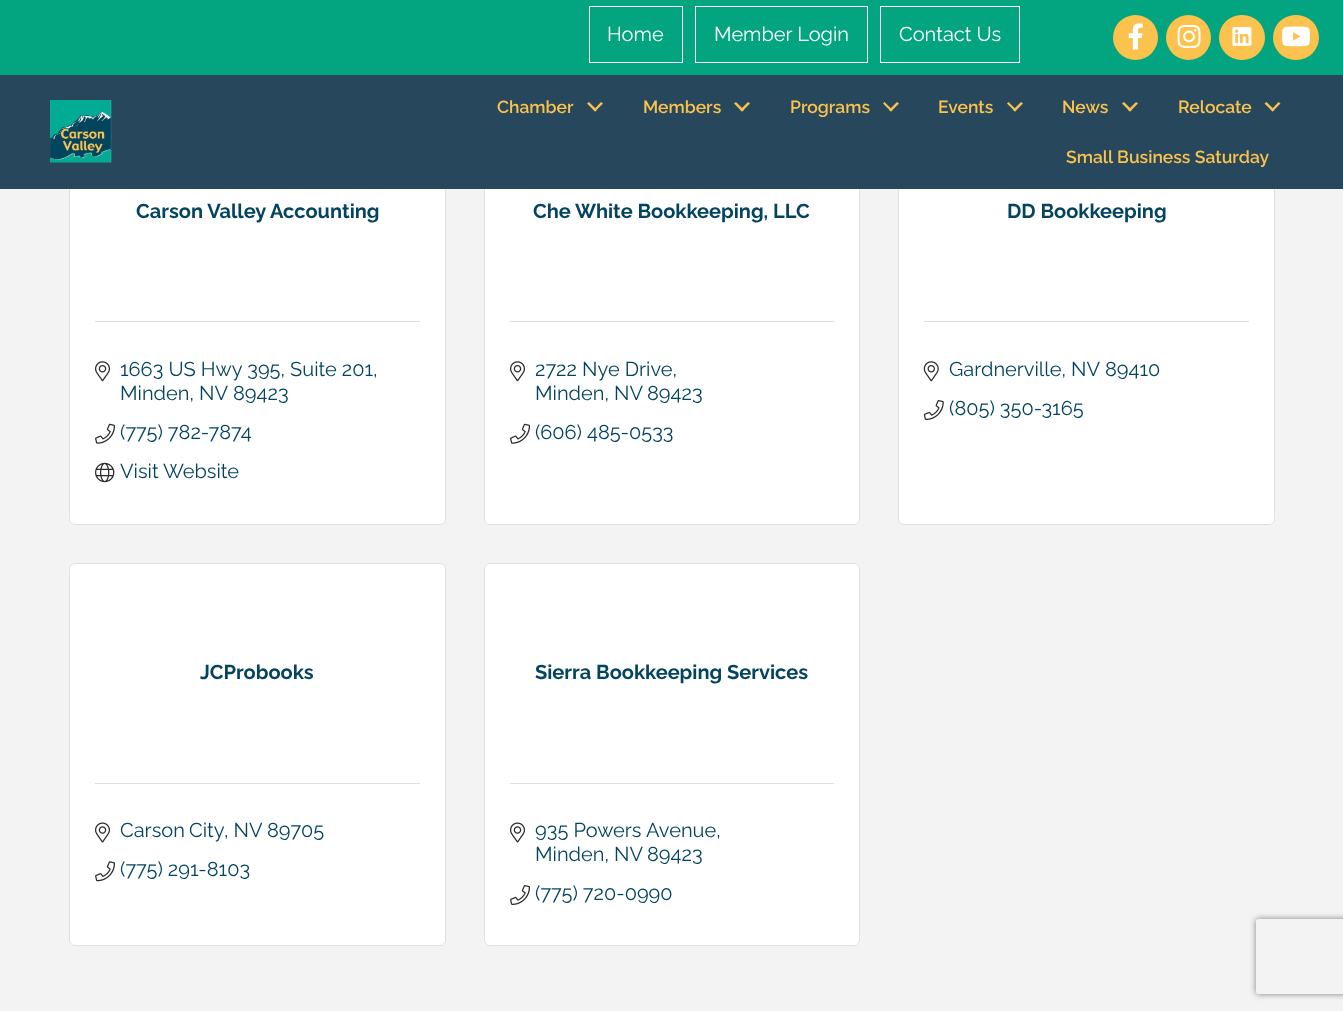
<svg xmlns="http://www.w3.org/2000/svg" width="1343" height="1011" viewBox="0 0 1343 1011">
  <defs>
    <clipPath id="clip1"><path d="M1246 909H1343V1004H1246ZM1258.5 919H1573.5C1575 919 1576 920 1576 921.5V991.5C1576 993 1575 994 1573.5 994H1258.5C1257 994 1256 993 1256 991.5V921.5C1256 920 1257 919 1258.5 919Z" clip-rule="evenodd"/></clipPath>
  </defs>
  <rect width="100%" height="100%" fill="rgb(243,243,243)"/>
  <rect x="0" y="0" width="1343" height="75" fill="rgb(2,165,128)"/>
  <rect x="589.5" y="6.5" width="93" height="56" fill="none" stroke="rgb(255,255,255)"/>
  <text x="607" y="41" font-family="Raleway" font-size="20" fill="rgb(255,255,255)">Home</text>
  <rect x="695.5" y="6.5" width="172" height="56" fill="none" stroke="rgb(255,255,255)"/>
  <text x="714" y="41" font-family="Raleway" font-size="20" fill="rgb(255,255,255)">Member Login</text>
  <rect x="880.5" y="6.5" width="139" height="56" fill="none" stroke="rgb(255,255,255)"/>
  <text x="899" y="41" font-family="Raleway" font-size="20" fill="rgb(255,255,255)">Contact Us</text>
  <circle cx="1135.5" cy="37.5" r="22.5" fill="rgb(251,194,78)"/>
  <image x="1128" y="23" width="15" height="27" href="pic1.png"/>
  <circle cx="1188.5" cy="37.5" r="22.5" fill="rgb(251,194,78)"/>
  <image x="1177" y="24" width="24" height="24" href="pic2.png"/>
  <rect x="1219" y="15" width="46" height="45" rx="22.5" fill="rgb(251,194,78)"/>
  <image x="1232" y="27" width="20" height="19" href="pic3.png"/>
  <rect x="1273" y="15" width="46" height="45" rx="22.5" fill="rgb(251,194,78)"/>
  <image x="1282" y="26" width="28" height="21" href="pic4.png"/>
  <rect x="69" y="101" width="377" height="424" rx="6" fill="rgb(255,255,255)"/>
  <rect x="69.5" y="101.5" width="376" height="423" rx="5.5" fill="none" stroke="rgba(0,0,0,0.12)"/>
  <rect x="484" y="101" width="376" height="424" rx="6" fill="rgb(255,255,255)"/>
  <rect x="484.5" y="101.5" width="375" height="423" rx="5.5" fill="none" stroke="rgba(0,0,0,0.12)"/>
  <rect x="898" y="101" width="377" height="424" rx="6" fill="rgb(255,255,255)"/>
  <rect x="898.5" y="101.5" width="376" height="423" rx="5.5" fill="none" stroke="rgba(0,0,0,0.12)"/>
  <rect x="0" y="75" width="1343" height="114" fill="rgb(39,72,92)"/>
  <image x="50" y="100" width="62" height="63" href="pic5.png"/>
  <text x="497" y="113" font-family="Raleway" font-size="17.5" font-weight="600" fill="rgb(251,194,78)">Chamber</text>
  <path d="M601 102L603 103.5L595 111.5L593.5 110Z" fill="rgb(251,194,78)"/>
  <path d="M589 102L597 110L595 111.5L587 103.5Z" fill="rgb(251,194,78)"/>
  <text x="643" y="113" font-family="Raleway" font-size="17.5" font-weight="600" fill="rgb(251,194,78)">Members</text>
  <path d="M748 102L750 103.5L742 111.5L740 110Z" fill="rgb(251,194,78)"/>
  <path d="M736 102L744 110L742 111.5L734 103.5Z" fill="rgb(251,194,78)"/>
  <text x="790" y="113" font-family="Raleway" font-size="17.5" font-weight="600" fill="rgb(251,194,78)">Programs</text>
  <path d="M897 102L899 103.5L891 111.5L889 110Z" fill="rgb(251,194,78)"/>
  <path d="M884.5 102L892.5 110L891 111.5L883 103.5Z" fill="rgb(251,194,78)"/>
  <text x="938" y="113" font-family="Raleway" font-size="17.5" font-weight="600" fill="rgb(251,194,78)">Events</text>
  <path d="M1021 102L1023 103.5L1015 111.5L1013 110Z" fill="rgb(251,194,78)"/>
  <path d="M1008.5 102L1016.5 110L1015 111.5L1007 103.5Z" fill="rgb(251,194,78)"/>
  <text x="1062" y="113" font-family="Raleway" font-size="17.5" font-weight="600" fill="rgb(251,194,78)">News</text>
  <path d="M1136 102L1138 103.5L1130 111.5L1128 110Z" fill="rgb(251,194,78)"/>
  <path d="M1124 102L1132 110L1130 111.5L1122 103.5Z" fill="rgb(251,194,78)"/>
  <text x="1178" y="113" font-family="Raleway" font-size="17.5" font-weight="600" fill="rgb(251,194,78)">Relocate</text>
  <path d="M1278.5 102L1280.5 103.5L1272.5 111.5L1271 110Z" fill="rgb(251,194,78)"/>
  <path d="M1266.5 102L1274.5 110L1272.5 111.5L1264.5 103.5Z" fill="rgb(251,194,78)"/>
  <text x="1066" y="163" font-family="Raleway" font-size="17.5" font-weight="600" fill="rgb(251,194,78)">Small Business Saturday</text>
  <text x="136" y="218" font-family="Raleway" font-size="20" font-weight="bold" fill="rgb(3,68,96)">Carson Valley Accounting</text>
  <rect x="95" y="321" width="325" height="1" fill="rgb(223,223,223)"/>
  <image x="95" y="361" width="15" height="21" href="pic6.png"/>
  <g font-family="Raleway" font-size="20" fill="rgb(3,68,96)">
    <text>
      <tspan x="120" y="376">1663 US Hwy 395, Suite 201,</tspan>
      <tspan x="120" y="400">Minden, NV</tspan>
    </text>
    <text x="233" y="400">89423</text>
  </g>
  <image x="95" y="423" width="20" height="21" href="pic7.png"/>
  <text x="120" y="439" font-family="Raleway" font-size="20" fill="rgb(3,68,96)">(775) 782-7874</text>
  <image x="95" y="462" width="20" height="21" href="pic8.png"/>
  <text x="120" y="478" font-family="Raleway" font-size="20" fill="rgb(3,68,96)">Visit Website</text>
  <text x="533" y="218" font-family="Raleway" font-size="20" font-weight="bold" fill="rgb(3,68,96)">Che White Bookkeeping, LLC</text>
  <rect x="510" y="321" width="324" height="1" fill="rgb(223,223,223)"/>
  <image x="510" y="361" width="15" height="21" href="pic6.png"/>
  <g font-family="Raleway" font-size="20" fill="rgb(3,68,96)">
    <text>
      <tspan x="535" y="376">2722 Nye Drive,</tspan>
      <tspan x="535" y="400">Minden, NV</tspan>
    </text>
    <text x="647" y="400">89423</text>
  </g>
  <image x="510" y="423" width="20" height="21" href="pic7.png"/>
  <text x="535" y="439" font-family="Raleway" font-size="20" fill="rgb(3,68,96)">(606) 485-0533</text>
  <text x="1007" y="218" font-family="Raleway" font-size="20" font-weight="bold" fill="rgb(3,68,96)">DD Bookkeeping</text>
  <rect x="924" y="321" width="325" height="1" fill="rgb(223,223,223)"/>
  <image x="923" y="361" width="16" height="21" href="pic9.png"/>
  <g font-family="Raleway" font-size="20" fill="rgb(3,68,96)">
    <text x="949" y="376">Gardnerville, NV</text>
    <text x="1105" y="376">89410</text>
  </g>
  <image x="923" y="400" width="21" height="20" href="pic10.png"/>
  <text x="949" y="415" font-family="Raleway" font-size="20" fill="rgb(3,68,96)">(805) 350-3165</text>
  <rect x="69" y="563" width="377" height="383" rx="6" fill="rgb(255,255,255)"/>
  <rect x="69.5" y="563.5" width="376" height="382" rx="5.5" fill="none" stroke="rgba(0,0,0,0.12)"/>
  <text x="200" y="679" font-family="Raleway" font-size="20" font-weight="bold" fill="rgb(3,68,96)">JCProbooks</text>
  <rect x="95" y="783" width="325" height="1" fill="rgb(223,223,223)"/>
  <image x="95" y="822" width="15" height="21" href="pic11.png"/>
  <g font-family="Raleway" font-size="20" fill="rgb(3,68,96)">
    <text x="120" y="837" word-spacing="-1">Carson City</text>
    <text x="224" y="837">, NV</text>
    <text x="267" y="837">89705</text>
  </g>
  <image x="95" y="861" width="20" height="21" href="pic12.png"/>
  <text x="120" y="876" font-family="Raleway" font-size="20" fill="rgb(3,68,96)">(775) 291-8103</text>
  <rect x="484" y="563" width="376" height="383" rx="6" fill="rgb(255,255,255)"/>
  <rect x="484.5" y="563.5" width="375" height="382" rx="5.5" fill="none" stroke="rgba(0,0,0,0.12)"/>
  <text x="535" y="679" font-family="Raleway" font-size="20" font-weight="bold" fill="rgb(3,68,96)">Sierra Bookkeeping Services</text>
  <rect x="510" y="783" width="324" height="1" fill="rgb(223,223,223)"/>
  <image x="510" y="822" width="15" height="21" href="pic11.png"/>
  <g font-family="Raleway" font-size="20" fill="rgb(3,68,96)">
    <text>
      <tspan x="535" y="837">935 Powers Avenue,</tspan>
      <tspan x="535" y="861">Minden, NV</tspan>
    </text>
    <text x="647" y="861">89423</text>
  </g>
  <image x="510" y="885" width="20" height="20" href="pic13.png"/>
  <text x="535" y="900" font-family="Raleway" font-size="20" fill="rgb(3,68,96)">(775) 720-0990</text>
  <g clip-path="url(#clip1)">
    <rect x="1256" y="919" width="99" height="75" rx="2.5" fill="rgb(128,128,128)" filter="blur(3px)"/>
  </g>
</svg>
